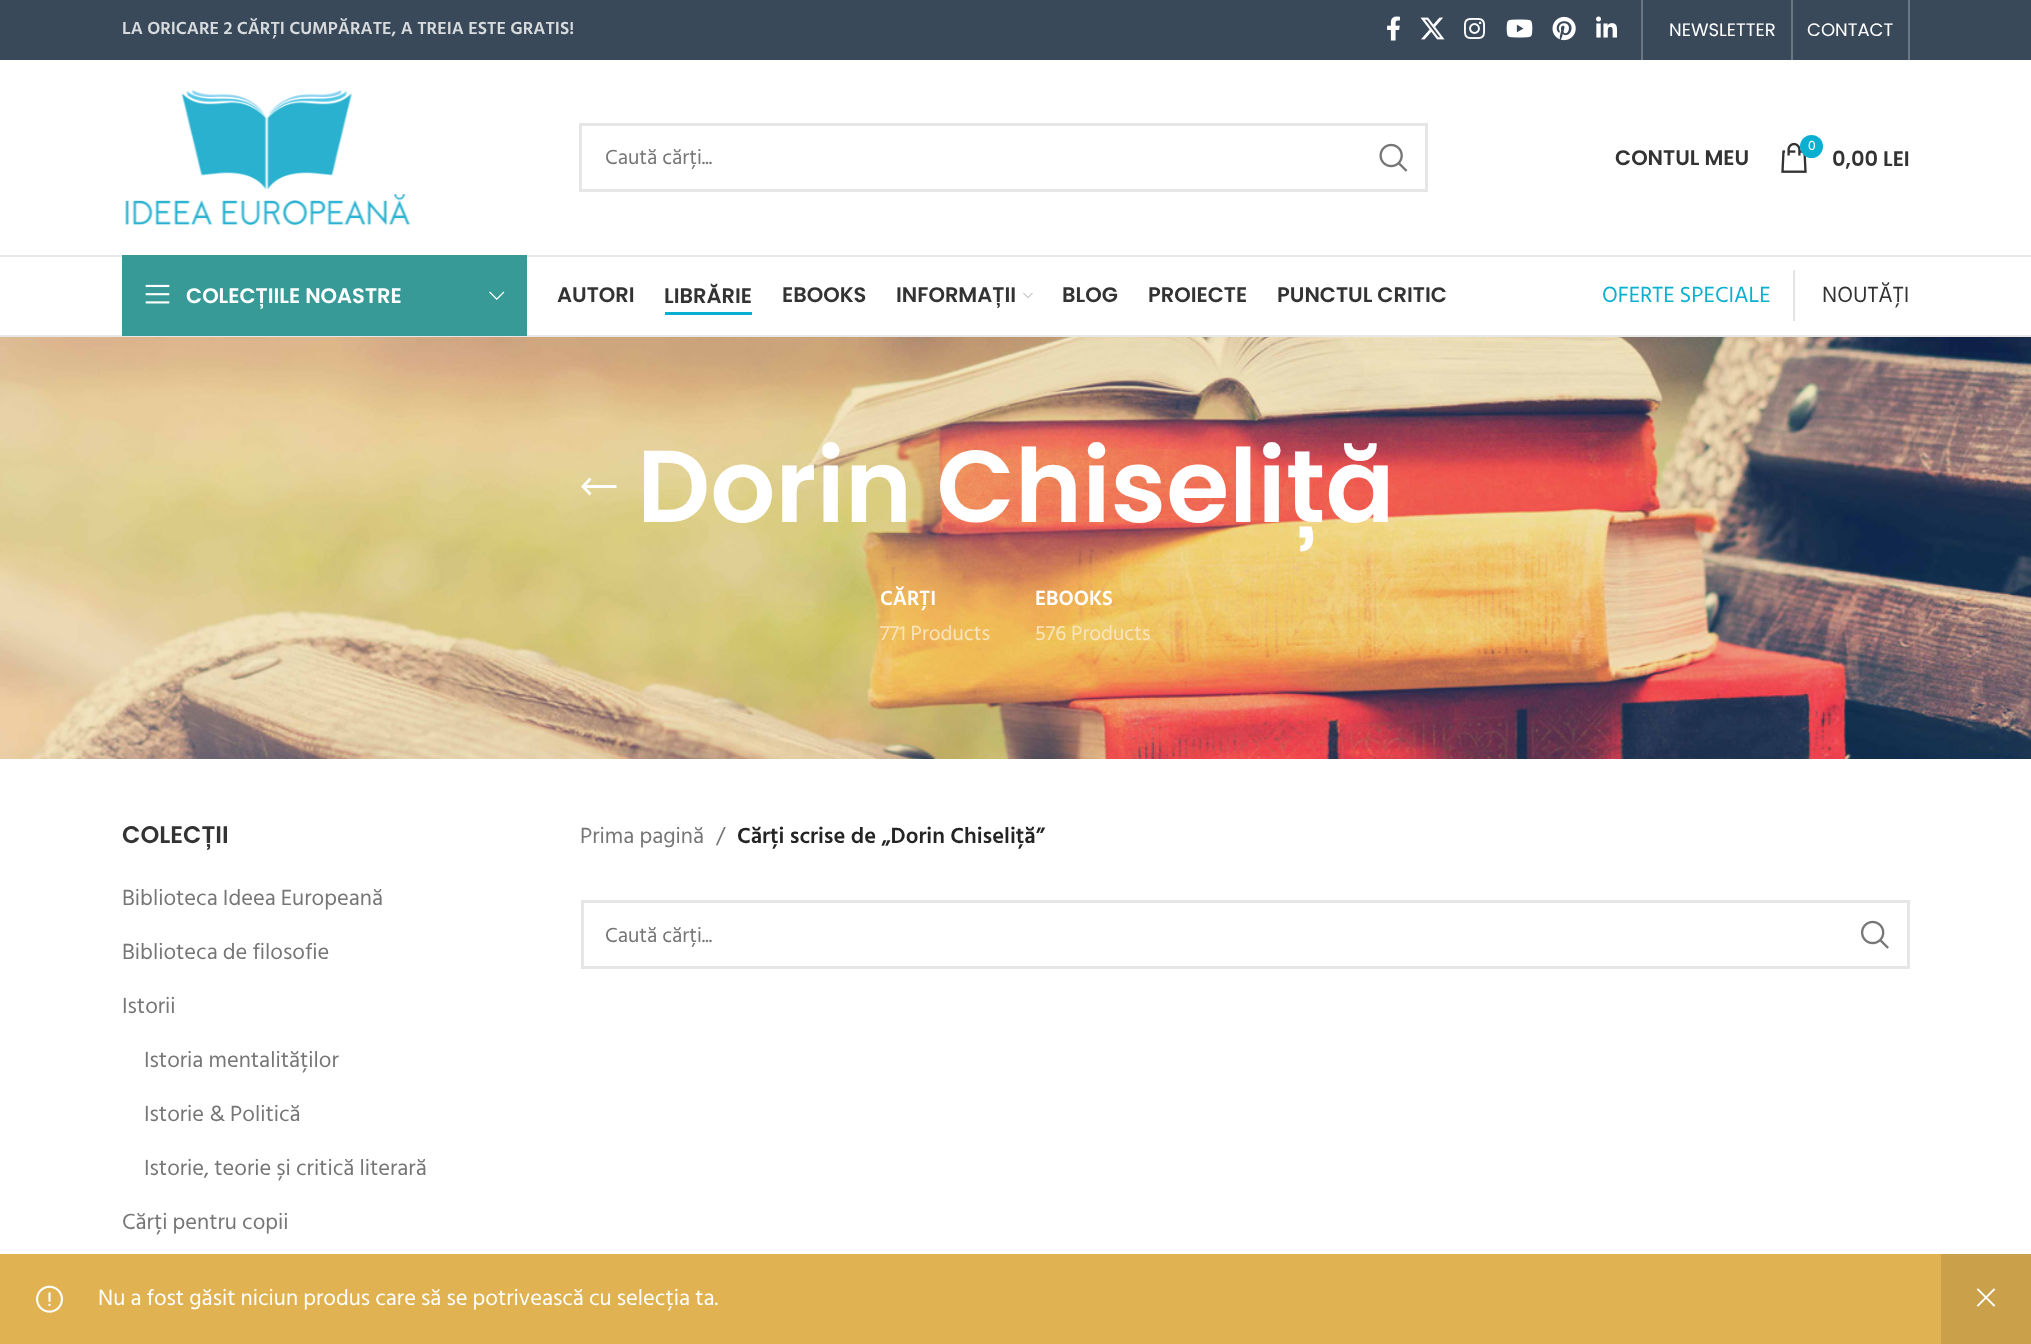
<svg xmlns="http://www.w3.org/2000/svg" width="2031" height="1344" viewBox="0 0 2031 1344">
  <rect width="100%" height="100%" fill="rgb(255,255,255)"/>
  <rect x="0" y="0" width="2031" height="60" fill="rgb(57,73,89)"/>
  <text x="122" y="34" font-family="Hind Siliguri" font-size="18" font-weight="600" fill="rgb(215,219,222)">LA ORICARE 2 CĂRȚI CUMPĂRATE, A TREIA ESTE GRATIS!</text>
  <image x="1387" y="16" width="13" height="25" href="pic1.png"/>
  <image x="1420" y="17" width="25" height="23" href="pic2.png"/>
  <image x="1464" y="18" width="21" height="21" href="pic3.png"/>
  <image x="1506" y="19" width="27" height="19" href="pic4.png"/>
  <image x="1552" y="16" width="24" height="25" href="pic5.png"/>
  <image x="1596" y="16" width="21" height="22" href="pic6.png"/>
  <rect x="1641" y="0" width="2" height="60" fill="rgb(107,119,131)"/>
  <text x="1669" y="36" font-family="Poppins" font-size="18" fill="rgb(255,255,255)">NEWSLETTER</text>
  <rect x="1791" y="0" width="2" height="60" fill="rgb(107,119,131)"/>
  <text x="1807" y="36" font-family="Poppins" font-size="18" fill="rgb(255,255,255)">CONTACT</text>
  <rect x="1908" y="0" width="2" height="60" fill="rgb(107,119,131)"/>
  <rect x="0" y="255" width="2031" height="2" fill="rgb(232,232,232)"/>
  <image x="125" y="90" width="285" height="135" href="pic7.png"/>
  <rect x="580.5" y="124.5" width="846" height="66" fill="none" stroke="rgb(230,230,230)" stroke-width="3"/>
  <text x="605" y="164" font-family="Hind Siliguri" font-size="21" fill="rgb(118,118,118)">Caută cărți...</text>
  <image x="1379" y="143" width="29" height="29" href="pic8.png"/>
  <text x="1615" y="165" font-family="Poppins" font-size="21" font-weight="600" fill="rgb(51,51,51)">CONTUL MEU</text>
  <image x="1781" y="142" width="26" height="31" href="pic9.png"/>
  <circle cx="1811.5" cy="146.5" r="11.5" fill="rgb(11,176,208)"/>
  <text x="1808" y="150" font-family="Hind Siliguri" font-size="14" fill="rgb(255,255,255)">0</text>
  <text x="1832" y="166" font-family="Poppins" font-size="21" font-weight="600" fill="rgb(51,51,51)">0,00 LEI</text>
  <rect x="0" y="335" width="2031" height="2" fill="rgb(232,232,232)"/>
  <rect x="122" y="255" width="405" height="81" fill="rgb(56,154,151)"/>
  <image x="145" y="284" width="25" height="20" href="pic10.png"/>
  <text x="186" y="303" font-family="Poppins" font-size="21" font-weight="600" fill="rgb(255,255,255)">COLECȚIILE NOASTRE</text>
  <image x="489" y="291" width="16" height="9" href="pic11.png"/>
  <text x="557" y="302" font-family="Poppins" font-size="21" font-weight="600" fill="rgb(51,51,51)">AUTORI</text>
  <rect x="665" y="312" width="87" height="3" fill="rgb(11,176,208)"/>
  <g font-family="Poppins" font-size="21" font-weight="600" fill="rgb(51,51,51)">
    <text x="664" y="303">LIBRĂRIE</text>
    <text x="782" y="302">EBOOKS</text>
    <text x="896" y="302">INFORMAȚII</text>
  </g>
  <image x="1023" y="292" width="10" height="6" href="pic12.png"/>
  <g font-family="Poppins" font-size="21" font-weight="600" fill="rgb(51,51,51)">
    <text x="1062" y="302">BLOG</text>
    <text x="1148" y="302">PROIECTE</text>
    <text x="1277" y="302">PUNCTUL CRITIC</text>
  </g>
  <rect x="1793" y="270" width="2" height="51" fill="rgb(228,228,228)"/>
  <text x="1602" y="302" font-family="Hind Siliguri" font-size="22.5" fill="rgb(11,176,208)">OFERTE SPECIALE</text>
  <text x="1822" y="302" font-family="Hind Siliguri" font-size="22.5" fill="rgb(51,51,51)">NOUTĂȚI</text>
  <image x="0" y="337" width="2031" height="422" href="pic13.png"/>
  <path d="M591.5 493.5L586.5 488H616.5V485H586.5L591.5 479.5L589.5 477.5L581 486.5L589.5 495.5Z" fill="rgb(255,255,255)"/>
  <text x="637" y="522" font-family="Poppins" font-size="102" font-weight="600" fill="rgb(255,255,255)">Dorin Chiseliță</text>
  <text x="880" y="605" font-family="Hind Siliguri" font-size="21" font-weight="600" fill="rgb(255,255,255)">CĂRȚI</text>
  <text x="880" y="640" font-family="Hind Siliguri" font-size="21" fill="rgb(249,228,188)">771 Products</text>
  <text x="1035" y="605" font-family="Hind Siliguri" font-size="21" font-weight="600" fill="rgb(255,255,255)">EBOOKS</text>
  <text x="1035" y="640" font-family="Hind Siliguri" font-size="21" fill="rgb(249,228,188)">576 Products</text>
  <g font-family="Hind Siliguri" font-size="22.5" fill="rgb(118,118,118)">
    <text x="580" y="843">Prima pagină</text>
    <text x="716" y="843">/</text>
  </g>
  <text x="737" y="843" font-family="Hind Siliguri" font-size="22.5" font-weight="600" fill="rgb(36,36,36)">Cărți scrise de „Dorin Chiseliță”</text>
  <rect x="582.5" y="901.5" width="1326" height="66" fill="none" stroke="rgb(230,230,230)" stroke-width="3"/>
  <text x="605" y="942" font-family="Hind Siliguri" font-size="21" fill="rgb(118,118,118)">Caută cărți...</text>
  <image x="1860" y="920" width="29" height="29" href="pic14.png"/>
  <rect x="0" y="1254" width="1941" height="90" fill="rgb(224,178,82)"/>
  <image x="36" y="1285" width="27" height="28" href="pic15.png"/>
  <text x="98" y="1305" font-family="Hind Siliguri" font-size="22.5" fill="rgb(255,255,255)">Nu a fost găsit niciun produs care să se potrivească cu selecția ta.</text>
  <rect x="1941" y="1254" width="90" height="90" fill="rgb(202,160,74)"/>
  <image x="1976" y="1288" width="20" height="19" href="pic16.png"/>
  <text x="122" y="843" font-family="Poppins" font-size="24" font-weight="600" fill="rgb(51,51,51)">COLECȚII</text>
  <g font-family="Hind Siliguri" font-size="22.5" fill="rgb(118,118,118)">
    <text x="122" y="905">Biblioteca Ideea Europeană</text>
    <text x="122" y="959">Biblioteca de filosofie</text>
    <text x="122" y="1013">Istorii</text>
    <text x="144" y="1067">Istoria mentalităților</text>
    <text x="144" y="1121">Istorie &amp; Politică</text>
    <text x="144" y="1175">Istorie, teorie și critică literară</text>
    <text x="122" y="1229">Cărți pentru copii</text>
  </g>
</svg>
